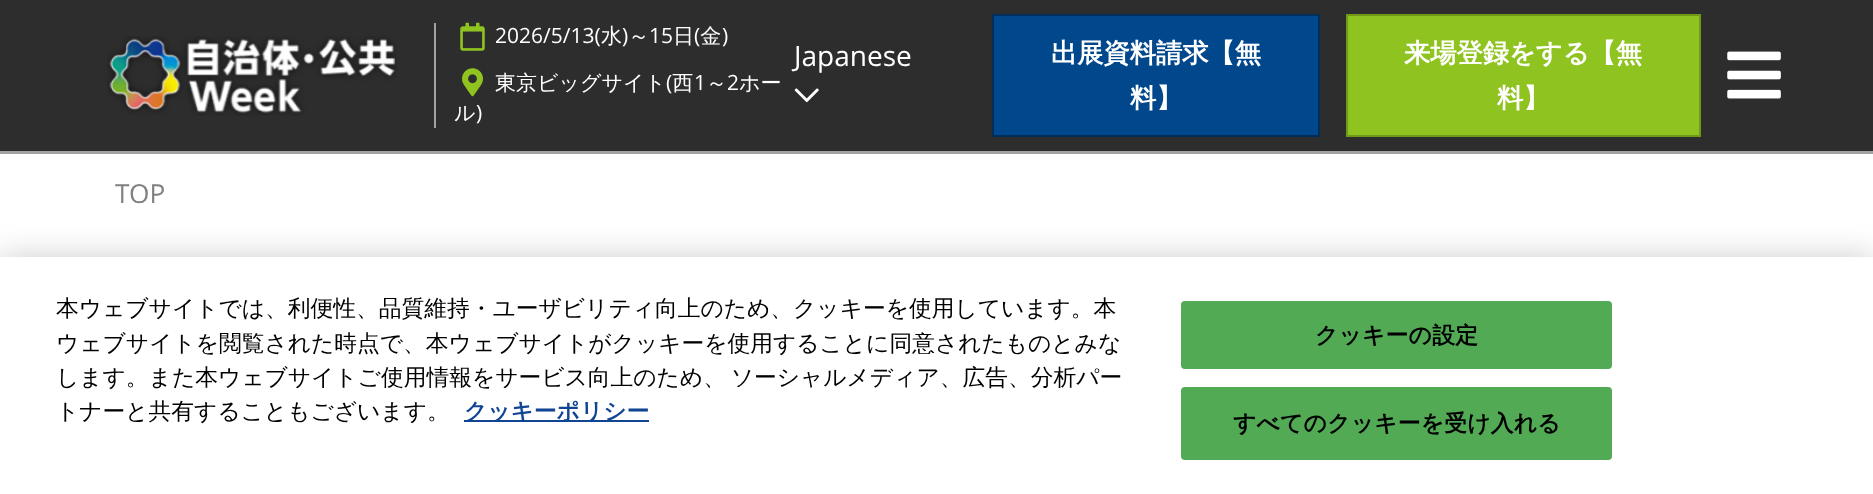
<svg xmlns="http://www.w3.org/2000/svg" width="1873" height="494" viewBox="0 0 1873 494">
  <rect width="100%" height="100%" fill="rgb(255,255,255)"/>
  <rect x="0" y="0" width="1873" height="151" fill="rgb(45,45,45)"/>
  <rect x="0" y="151" width="1873" height="3" fill="rgb(162,162,162)"/>
  <image x="107" y="36" width="290" height="80" href="pic1.png"/>
  <rect x="434" y="23" width="2" height="105" fill="rgb(162,162,162)"/>
  <image x="460" y="22" width="25" height="29" href="pic2.png"/>
  <text x="495" y="43" font-family="Open Sans" font-size="21" fill="rgb(255,255,255)">2026/5/13(</text>
  <g font-family="WenQuanYi Zen Hei" font-size="21" font-weight="500" fill="rgb(255,255,255)">
    <text x="601" y="43">水 ～</text>
    <text x="673" y="43">日 金</text>
  </g>
  <g font-family="Open Sans" font-size="21" fill="rgb(255,255,255)">
    <text x="622" y="43">)</text>
    <text x="649" y="43">15</text>
    <text x="694" y="43">(</text>
    <text x="722" y="43">)</text>
  </g>
  <image x="462" y="68" width="21" height="29" href="pic3.png"/>
  <text x="495" y="90" font-family="WenQuanYi Zen Hei" font-size="21" font-weight="500" fill="rgb(255,255,255)">東京ビッグサイト 西</text>
  <g font-family="Open Sans" font-size="21" fill="rgb(255,255,255)">
    <text x="727" y="90">2</text>
    <text x="666" y="90">(</text>
    <text x="694" y="90">1</text>
  </g>
  <g font-family="WenQuanYi Zen Hei" font-size="21" font-weight="500" fill="rgb(255,255,255)">
    <text x="706" y="90">～</text>
    <text x="739" y="90">ホー</text>
    <text x="454" y="120">ル</text>
  </g>
  <text x="476" y="120" font-family="Open Sans" font-size="21" fill="rgb(255,255,255)">)</text>
  <text x="794" y="66" font-family="Open Sans" font-size="28" fill="rgb(255,255,255)">Japanese</text>
  <image x="794" y="88" width="25" height="15" href="pic4.png"/>
  <rect x="993" y="15" width="326" height="121" fill="rgb(0,71,139)" stroke="rgb(0,46,90)" stroke-width="2"/>
  <g font-family="WenQuanYi Zen Hei" font-size="26.25" font-weight="bold" fill="rgb(255,255,255)">
    <text x="1051" y="62">出展資料請求【無</text>
    <text x="1130" y="107">料】</text>
  </g>
  <rect x="1347" y="15" width="353" height="121" fill="rgb(143,195,31)" stroke="rgb(112,153,24)" stroke-width="2"/>
  <g font-family="WenQuanYi Zen Hei" font-size="26.25" font-weight="bold" fill="rgb(255,255,255)">
    <text x="1404" y="62">来場登録をする【無</text>
    <text x="1497" y="107">料】</text>
  </g>
  <image x="1727" y="51" width="54" height="48" href="pic5.png"/>
  <text x="115" y="203" font-family="Open Sans" font-size="26.25" fill="rgb(129,129,129)">TOP</text>
  <rect x="0" y="257" width="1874" height="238" fill="rgba(0,0,0,0.2)" filter="blur(16px)"/>
  <rect x="0" y="257" width="1873" height="237" fill="rgb(255,255,255)"/>
  <g font-family="WenQuanYi Zen Hei" font-size="22.75" font-weight="500" fill="rgb(0,0,0)">
    <text>
      <tspan x="56" y="316">本ウェブサイトでは、利便性、品質維持・ユーザビリティ向上のため、クッキーを使用しています。本</tspan>
      <tspan x="56" y="351">ウェブサイトを閲覧された時点で、本ウェブサイトがクッキーを使用することに同意されたものとみな</tspan>
      <tspan x="56" y="385" word-spacing="-2">します。また本ウェブサイトご使用情報をサービス向上のため、 ソーシャルメディア、広告、分析パー</tspan>
      <tspan x="56" y="419">トナーと共有することもございます。</tspan>
    </text>
  </g>
  <rect x="464" y="420" width="185" height="2" fill="rgb(16,69,147)"/>
  <text x="464" y="419" font-family="WenQuanYi Zen Hei" font-size="22.75" font-weight="bold" fill="rgb(16,69,147)">クッキーポリシー</text>
  <rect x="1181" y="301" width="431" height="68" rx="4" fill="rgb(82,170,85)"/>
  <text x="1315" y="343" font-family="WenQuanYi Zen Hei" font-size="22.75" font-weight="bold" letter-spacing="0.25" fill="rgb(0,0,0)">クッキーの設定</text>
  <rect x="1182" y="388" width="429" height="71" rx="3" fill="rgb(82,170,85)" stroke="rgb(82,170,85)" stroke-width="2"/>
  <text x="1233" y="431" font-family="WenQuanYi Zen Hei" font-size="22.75" font-weight="bold" letter-spacing="0.25" fill="rgb(0,0,0)">すべてのクッキーを受け入れる</text>
</svg>
